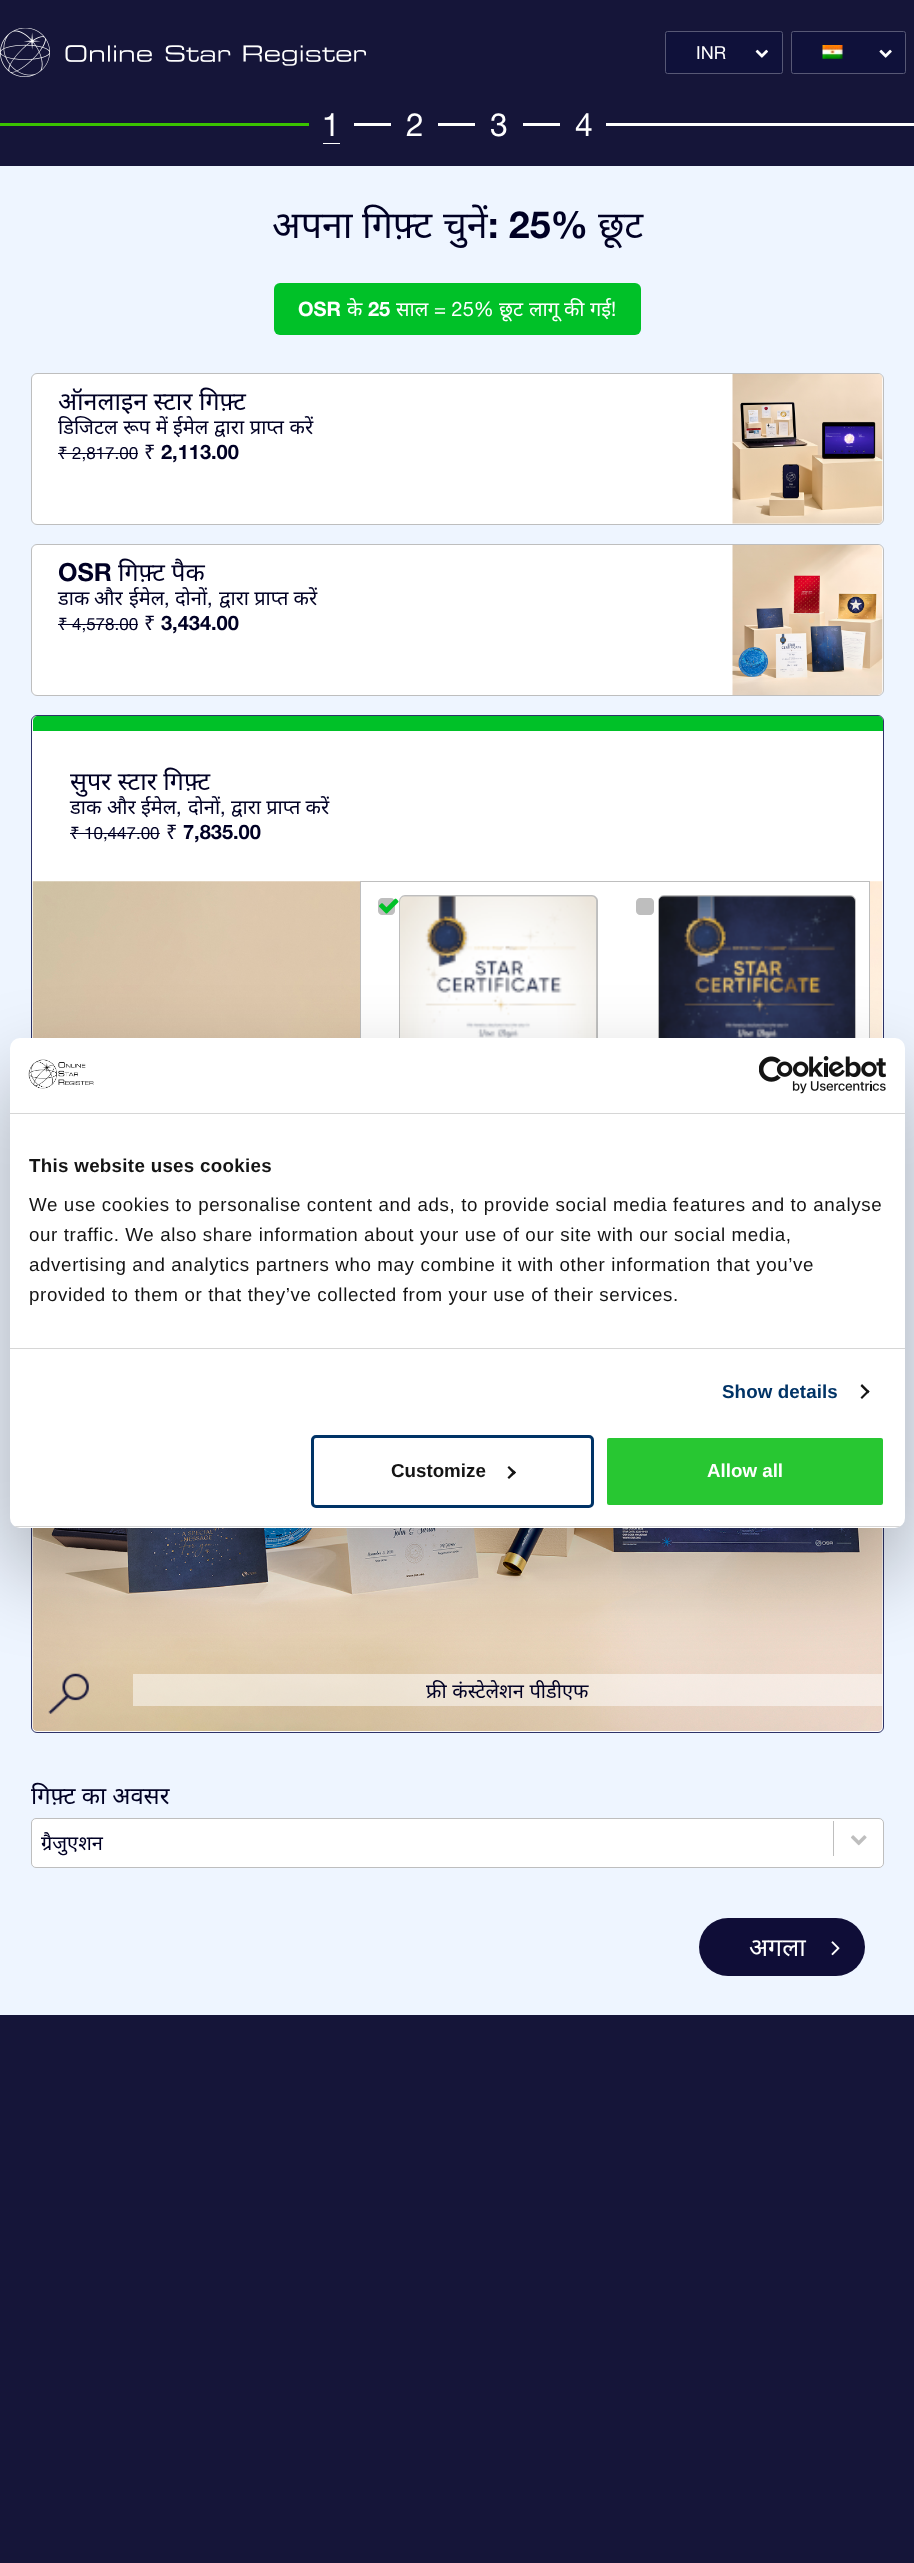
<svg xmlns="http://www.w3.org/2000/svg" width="914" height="2563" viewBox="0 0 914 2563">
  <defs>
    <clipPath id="clip1"><rect x="10" y="1038" width="895" height="490" rx="10"/></clipPath>
  </defs>
  <rect width="100%" height="100%" fill="rgb(21,21,57)"/>
  <image x="0" y="28" width="366" height="49" href="pic1.png"/>
  <rect x="665.5" y="31.5" width="117" height="42" rx="2" fill="rgb(15,17,58)" stroke="rgb(87,88,117)"/>
  <text x="696" y="59" font-family="Helvetica Neue" font-size="18" fill="rgb(255,255,255)">INR</text>
  <image x="755" y="49" width="13" height="9" href="pic2.png"/>
  <rect x="791.5" y="31.5" width="114" height="42" rx="2" fill="rgb(15,17,58)" stroke="rgb(87,88,117)"/>
  <image x="822" y="45" width="21" height="14" href="pic3.png"/>
  <image x="879" y="49" width="13" height="9" href="pic4.png"/>
  <rect x="0" y="123" width="309" height="3" fill="rgb(58,195,0)"/>
  <text x="322" y="136" font-family="Helvetica Neue" font-size="32" fill="rgb(255,255,255)">1</text>
  <rect x="323" y="143" width="17" height="1" fill="rgb(255,255,255)"/>
  <rect x="354" y="123" width="37" height="3" fill="rgb(255,255,255)"/>
  <text x="406" y="136" font-family="Helvetica Neue" font-size="32" fill="rgb(255,255,255)">2</text>
  <rect x="438" y="123" width="37" height="3" fill="rgb(255,255,255)"/>
  <text x="490" y="136" font-family="Helvetica Neue" font-size="32" fill="rgb(255,255,255)">3</text>
  <rect x="523" y="123" width="37" height="3" fill="rgb(255,255,255)"/>
  <text x="575" y="136" font-family="Helvetica Neue" font-size="32" fill="rgb(255,255,255)">4</text>
  <rect x="606" y="123" width="308" height="3" fill="rgb(255,255,255)"/>
  <rect x="0" y="166" width="914" height="1849" fill="rgb(238,245,255)"/>
  <g font-family="Noto Sans" font-size="37.5" fill="rgb(0,0,36)">
    <text x="272" y="238">अपना</text>
    <text x="362" y="238">गिफ़्ट</text>
    <text x="443" y="238">चुनें</text>
  </g>
  <text x="488" y="238" font-family="Helvetica Neue" font-size="37.5" font-weight="bold" fill="rgb(0,0,36)">: 25%</text>
  <text x="598" y="238" font-family="Noto Sans" font-size="37.5" fill="rgb(0,0,36)">छूट</text>
  <rect x="274" y="283" width="367" height="52" rx="6" fill="rgb(0,193,40)"/>
  <text x="298" y="316" font-family="Helvetica Neue" font-size="20" font-weight="bold" fill="rgb(255,255,255)">OSR</text>
  <text x="347" y="316" font-family="Noto Sans" font-size="20" fill="rgb(255,255,255)">के</text>
  <text x="368" y="316" font-family="Helvetica Neue" font-size="20" font-weight="bold" fill="rgb(255,255,255)">25</text>
  <text x="396" y="316" font-family="Noto Sans" font-size="20" fill="rgb(255,255,255)">साल</text>
  <text x="434" y="316" font-family="Helvetica Neue" font-size="20" fill="rgb(255,255,255)">= 25%</text>
  <g font-family="Noto Sans" font-size="20" fill="rgb(255,255,255)">
    <text x="499" y="316">छूट</text>
    <text x="529" y="316">लागू</text>
    <text x="564" y="316">की</text>
    <text x="590" y="316">गई</text>
  </g>
  <text x="611" y="316" font-family="Helvetica Neue" font-size="20" fill="rgb(255,255,255)">!</text>
  <rect x="31.5" y="373.5" width="852" height="151" rx="5.5" fill="rgb(255,255,255)" stroke="rgb(190,190,190)"/>
  <text x="58" y="410" font-family="Noto Sans" font-size="25" fill="rgb(0,0,36)">ऑनलाइन स्टार गिफ़्ट</text>
  <g font-family="Noto Sans" font-size="20" fill="rgb(0,0,36)">
    <text x="58" y="434" word-spacing="0.5">डिजिटल रूप में</text>
    <text x="173" y="434" word-spacing="0.5">ईमेल द्वारा प्राप्त करें</text>
  </g>
  <text x="58" y="459" font-family="Noto Sans" font-size="17" fill="rgb(0,0,36)">₹</text>
  <text x="72" y="459" font-family="Helvetica Neue" font-size="17" fill="rgb(0,0,36)">2,817.00</text>
  <rect x="58" y="453" width="80" height="1" fill="rgb(0,0,36)"/>
  <text x="144" y="459" font-family="Noto Sans" font-size="20" fill="rgb(0,0,36)">₹</text>
  <text x="161" y="459" font-family="Helvetica Neue" font-size="20" font-weight="bold" fill="rgb(0,0,36)">2,113.00</text>
  <image x="732" y="373" width="151" height="151" href="pic5.png"/>
  <rect x="31.5" y="544.5" width="852" height="151" rx="5.5" fill="rgb(255,255,255)" stroke="rgb(190,190,190)"/>
  <text x="58" y="581" font-family="Helvetica Neue" font-size="25" font-weight="bold" fill="rgb(0,0,36)">OSR</text>
  <text x="118" y="581" font-family="Noto Sans" font-size="25" fill="rgb(0,0,36)">गिफ़्ट पैक</text>
  <g font-family="Noto Sans" font-size="20" fill="rgb(0,0,36)">
    <text x="58" y="605">डाक</text>
    <text x="94" y="605">और</text>
    <text x="129" y="605">ईमेल</text>
  </g>
  <text x="164" y="605" font-family="Helvetica Neue" font-size="20" fill="rgb(0,0,36)">,</text>
  <text x="175" y="605" font-family="Noto Sans" font-size="20" fill="rgb(0,0,36)">दोनों</text>
  <text x="207" y="605" font-family="Helvetica Neue" font-size="20" fill="rgb(0,0,36)">,</text>
  <text x="219" y="605" font-family="Noto Sans" font-size="20" fill="rgb(0,0,36)">द्वारा प्राप्त करें</text>
  <text x="58" y="630" font-family="Noto Sans" font-size="17" fill="rgb(0,0,36)">₹</text>
  <text x="72" y="630" font-family="Helvetica Neue" font-size="17" fill="rgb(0,0,36)">4,578.00</text>
  <rect x="58" y="624" width="80" height="1" fill="rgb(0,0,36)"/>
  <text x="144" y="630" font-family="Noto Sans" font-size="20" fill="rgb(0,0,36)">₹</text>
  <text x="161" y="630" font-family="Helvetica Neue" font-size="20" font-weight="bold" fill="rgb(0,0,36)">3,434.00</text>
  <image x="732" y="545" width="151" height="150" href="pic6.png"/>
  <rect x="31.5" y="715.5" width="852" height="1017" rx="5.5" fill="rgb(255,255,255)" stroke="rgb(46,51,104)"/>
  <path d="M38 716H878C881 716 883 718 883 721V731H33V721C33 718 35 716 38 716Z" fill="rgb(0,193,40)"/>
  <text x="70" y="790" font-family="Noto Sans" font-size="25" fill="rgb(0,0,36)">सुपर स्टार गिफ़्ट</text>
  <g font-family="Noto Sans" font-size="20" fill="rgb(0,0,36)">
    <text x="70" y="814">डाक</text>
    <text x="107" y="814">और</text>
    <text x="141" y="814">ईमेल</text>
  </g>
  <text x="176" y="814" font-family="Helvetica Neue" font-size="20" fill="rgb(0,0,36)">,</text>
  <text x="188" y="814" font-family="Noto Sans" font-size="20" fill="rgb(0,0,36)">दोनों</text>
  <text x="220" y="814" font-family="Helvetica Neue" font-size="20" fill="rgb(0,0,36)">,</text>
  <text x="231" y="814" font-family="Noto Sans" font-size="20" fill="rgb(0,0,36)">द्वारा प्राप्त करें</text>
  <text x="70" y="839" font-family="Noto Sans" font-size="17" fill="rgb(0,0,36)">₹</text>
  <text x="84" y="839" font-family="Helvetica Neue" font-size="17" fill="rgb(0,0,36)">10,447.00</text>
  <rect x="70" y="833" width="90" height="1" fill="rgb(0,0,36)"/>
  <text x="166" y="839" font-family="Noto Sans" font-size="20" fill="rgb(0,0,36)">₹</text>
  <text x="183" y="839" font-family="Helvetica Neue" font-size="20" font-weight="bold" fill="rgb(0,0,36)">7,835.00</text>
  <image x="32" y="881" width="851" height="851" href="pic7.png"/>
  <rect x="361" y="882" width="508" height="156" fill="rgb(255,255,255)"/>
  <rect x="360.5" y="881.5" width="509" height="307" fill="none" stroke="rgb(190,190,190)"/>
  <path d="M405 895H592C595 895 598 898 598 901V1169C598 1172 595 1175 592 1175H405C402 1175 399 1172 399 1169V901C399 898 402 895 405 895Z" fill="rgb(190,190,190)"/>
  <path d="M382 898H391C393 898 395 900 395 902V911C395 913 393 915 391 915H382C380 915 378 913 378 911V902C378 900 380 898 382 898Z" fill="rgb(190,190,190)"/>
  <image x="400" y="896" width="197" height="142" href="pic8.png"/>
  <image x="379" y="898" width="20" height="16" href="pic9.png"/>
  <path d="M664 895H850C853 895 856 898 856 901V1169C856 1172 853 1175 850 1175H664C661 1175 658 1172 658 1169V901C658 898 661 895 664 895Z" fill="rgb(190,190,190)"/>
  <path d="M640 898H650C652 898 654 900 654 902V911C654 913 652 915 650 915H640C638 915 636 913 636 911V902C636 900 638 898 640 898Z" fill="rgb(190,190,190)"/>
  <image x="658" y="896" width="197" height="142" href="pic10.png"/>
  <image x="48" y="1673" width="41" height="41" href="pic11.png"/>
  <rect x="133" y="1674" width="750" height="32" fill="rgba(255,255,255,0.5)"/>
  <text x="426" y="1698" word-spacing="0.5" font-family="Noto Sans" font-size="20" fill="rgb(0,0,36)">फ्री कंस्टेलेशन पीडीएफ</text>
  <text x="31" y="1804" font-family="Noto Sans" font-size="23.75" fill="rgb(0,0,36)">गिफ़्ट का अवसर</text>
  <rect x="31.5" y="1818.5" width="852" height="49" rx="4.5" fill="rgb(255,255,255)" stroke="rgb(190,190,190)"/>
  <text x="41" y="1850" font-family="Noto Sans" font-size="20" fill="rgb(0,0,36)">ग्रैजुएशन</text>
  <rect x="833" y="1821" width="1" height="35" fill="rgb(190,190,190)"/>
  <image x="851" y="1835" width="16" height="11" href="pic12.png"/>
  <rect x="699" y="1918" width="166" height="58" rx="29" fill="rgb(15,13,55)"/>
  <text x="749" y="1956" font-family="Noto Sans" font-size="25" fill="rgb(255,255,255)">अगला</text>
  <image x="831" y="1941" width="9" height="15" href="pic13.png"/>
  <rect x="10" y="1078" width="895" height="490" rx="10" fill="rgba(0,0,0,0.3)" filter="blur(42.5px)"/>
  <rect x="10" y="1038" width="895" height="490" rx="10" fill="rgb(255,255,255)"/>
  <rect x="10" y="1113" width="895" height="1" fill="rgb(214,214,214)"/>
  <image x="28" y="1059" width="66" height="30" href="pic14.png"/>
  <image x="759" y="1056" width="127" height="38" href="pic15.png"/>
  <rect x="10" y="1348" width="895" height="1" fill="rgb(214,214,214)"/>
  <text x="29" y="1172" font-family="Liberation Sans" font-size="18.75" font-weight="bold" letter-spacing="0.3" fill="rgb(20,20,20)">This website uses cookies</text>
  <g font-family="Liberation Sans" font-size="18.75" letter-spacing="0.62" fill="rgb(20,20,20)">
    <text>
      <tspan x="29" y="1211">We use cookies to personalise content and ads, to provide social media features and to analyse</tspan>
      <tspan x="29" y="1241">our traffic. We also share information about your use of our site with our social media,</tspan>
      <tspan x="29" y="1271">advertising and analytics partners who may combine it with other information that you’ve</tspan>
      <tspan x="29" y="1301">provided to them or that they’ve collected from your use of their services.</tspan>
    </text>
  </g>
  <text x="722" y="1398" font-family="Liberation Sans" font-size="18.75" font-weight="bold" letter-spacing="0.1" fill="rgb(0,51,102)">Show details</text>
  <path d="M862 1384L869.5 1391.5L868 1393.5L860.5 1386Z" fill="rgb(20,20,20)"/>
  <path d="M868 1390L869.5 1391.5L862 1399L860.5 1397.5Z" fill="rgb(20,20,20)"/>
  <g clip-path="url(#clip1)">
    <rect x="10" y="1526" width="895" height="1" fill="rgb(214,214,214)"/>
  </g>
  <rect x="312.5" y="1436.5" width="280" height="70" rx="3.5" fill="none" stroke="rgb(0,51,102)" stroke-width="3"/>
  <text x="391" y="1477" font-family="Liberation Sans" font-size="18.75" font-weight="bold" fill="rgb(20,20,20)">Customize</text>
  <path d="M509 1466L516 1472.5L514 1474.5L507.5 1467.5Z" fill="rgb(20,20,20)"/>
  <path d="M514 1470.5L516 1472.5L509 1479L507.5 1477.5Z" fill="rgb(20,20,20)"/>
  <rect x="605.5" y="1436.5" width="279" height="70" rx="3.5" fill="rgb(40,199,50)" stroke="rgb(255,255,255)" stroke-width="3"/>
  <text x="707" y="1477" font-family="Liberation Sans" font-size="18.75" font-weight="bold" fill="rgb(255,255,255)">Allow all</text>
</svg>
